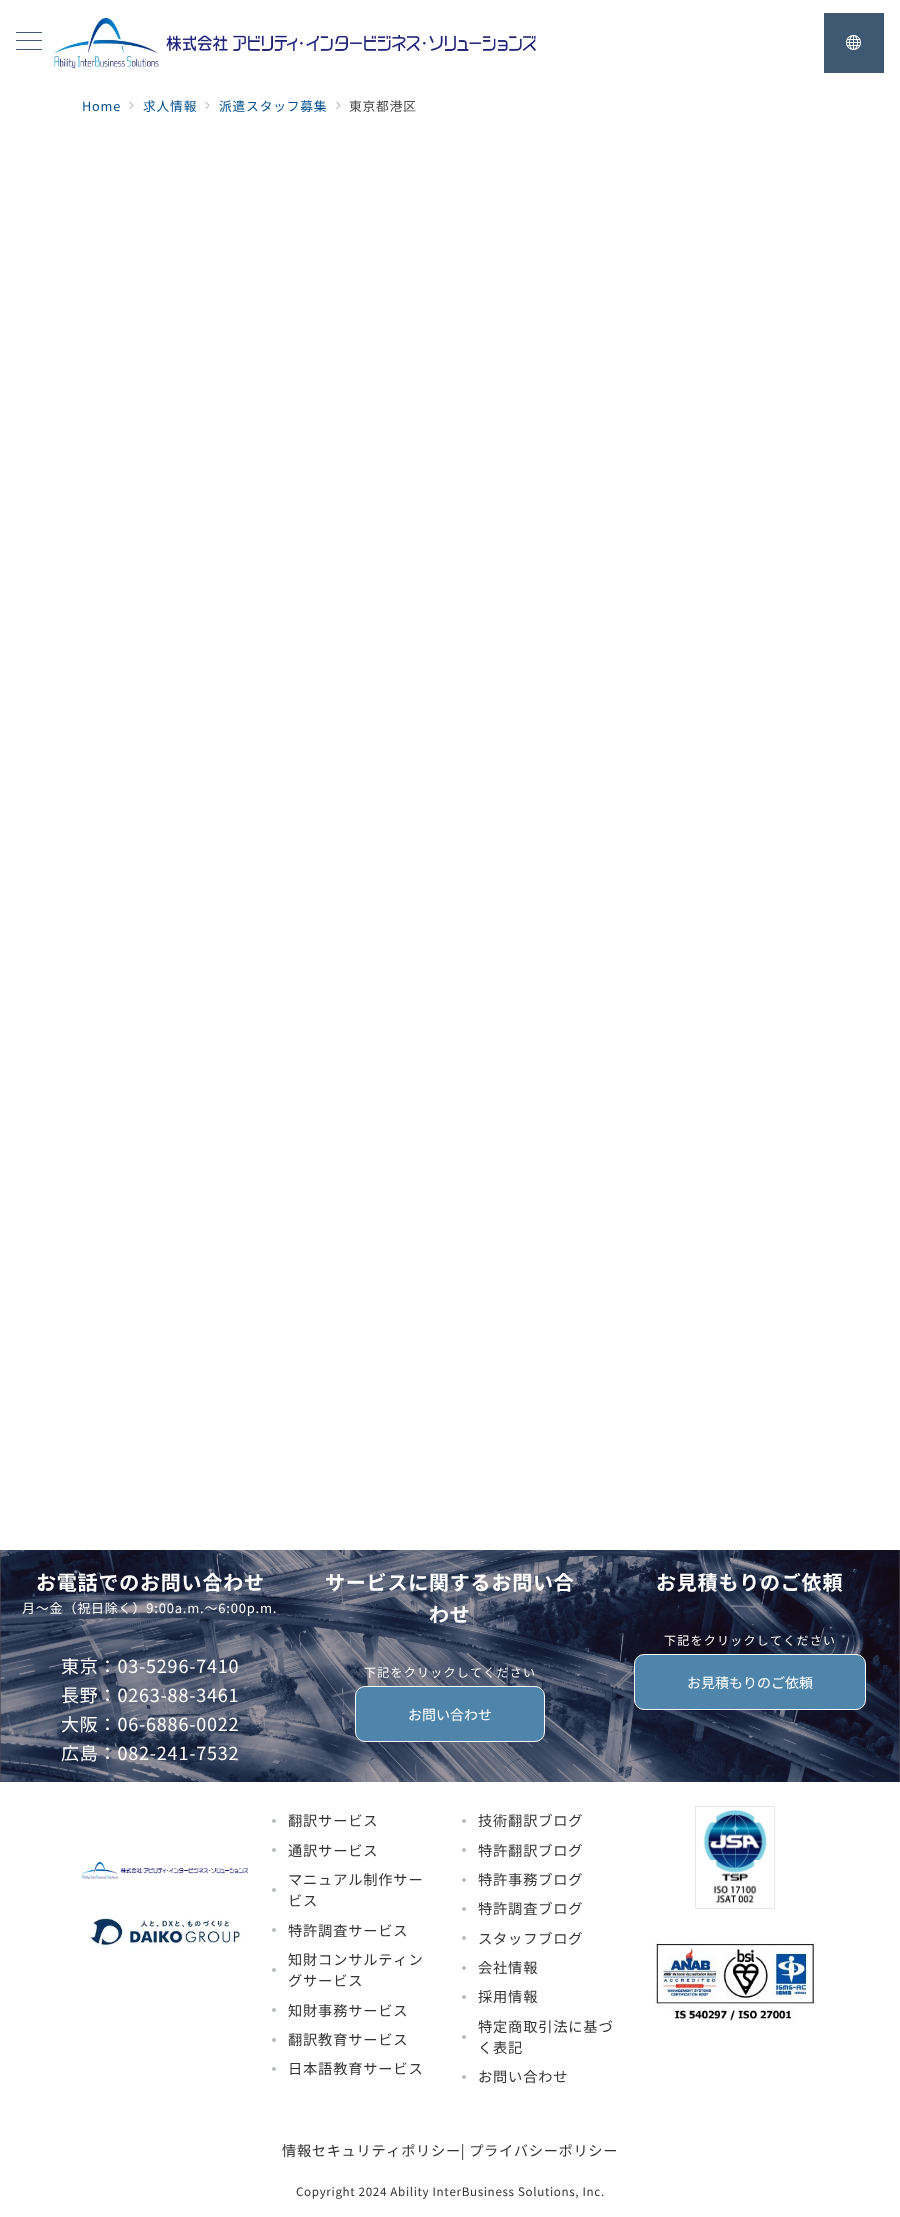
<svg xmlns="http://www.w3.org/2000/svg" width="900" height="2217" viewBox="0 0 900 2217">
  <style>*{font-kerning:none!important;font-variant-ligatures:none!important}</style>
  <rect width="100%" height="100%" fill="rgb(255,255,255)"/>
  <rect x="16" y="32" width="26" height="1" rx="0.5" fill="rgb(63,89,115)"/>
  <rect x="16" y="40" width="26" height="1" rx="0.5" fill="rgb(63,89,115)"/>
  <rect x="16" y="49" width="26" height="1" rx="0.5" fill="rgb(63,89,115)"/>
  <image x="54" y="18" width="482" height="50" href="pic1.png"/>
  <rect x="824" y="13" width="60" height="60" fill="rgb(63,89,115)"/>
  <image x="846" y="35" width="15" height="15" href="pic2.png"/>
  <text x="82" y="111" font-family="Noto Sans JP" font-size="12.75" letter-spacing="0.8" fill="rgb(0,78,142)">Home</text>
  <image x="129" y="101" width="5" height="8" href="pic3.png"/>
  <text x="143" y="111" font-family="Noto Sans JP" font-size="12.75" letter-spacing="0.8" fill="rgb(0,78,142)">求人情報</text>
  <image x="205" y="101" width="5" height="8" href="pic3.png"/>
  <text x="219" y="111" font-family="Noto Sans JP" font-size="12.75" letter-spacing="0.8" fill="rgb(0,78,142)">派遣スタッフ募集</text>
  <image x="336" y="101" width="5" height="8" href="pic3.png"/>
  <text x="349" y="111" font-family="Noto Sans JP" font-size="12.75" letter-spacing="0.8" fill="rgb(72,72,72)">東京都港区</text>
  <image x="0" y="1550" width="900" height="232" href="pic4.png"/>
  <text x="36" y="1590" font-family="Noto Sans JP" font-size="20" font-weight="bold" letter-spacing="0.8" fill="rgb(255,255,255)">お電話でのお問い合わせ</text>
  <text x="22" y="1613" font-family="Noto Sans JP" font-size="13" letter-spacing="0.8" fill="rgb(255,255,255)">月～金（祝日除く）9:00a.m.～6:00p.m.</text>
  <g font-family="Noto Sans JP" font-size="18" letter-spacing="0.8" fill="rgb(255,255,255)">
    <text>
      <tspan x="61" y="1673">東京：03-5296-7410</tspan>
      <tspan x="61" y="1702">長野：0263-88-3461</tspan>
      <tspan x="61" y="1731">大阪：06-6886-0022</tspan>
      <tspan x="61" y="1760">広島：082-241-7532</tspan>
    </text>
  </g>
  <g font-family="Noto Sans JP" font-size="20" font-weight="bold" letter-spacing="0.8" fill="rgb(255,255,255)">
    <text x="325" y="1590">サービスに関するお問い合</text>
    <text x="429" y="1622">わせ</text>
  </g>
  <text x="364" y="1677" font-family="Noto Sans JP" font-size="12" letter-spacing="1.25" fill="rgb(255,255,255)">下記をクリックしてください</text>
  <rect x="355.5" y="1686.5" width="189" height="55" rx="9.5" fill="rgb(79,133,171)" stroke="rgb(255,255,255)"/>
  <text x="408" y="1720" font-family="Noto Sans JP" font-size="14" fill="rgb(255,255,255)">お問い合わせ</text>
  <text x="656" y="1590" font-family="Noto Sans JP" font-size="20" font-weight="bold" letter-spacing="0.8" fill="rgb(255,255,255)">お見積もりのご依頼</text>
  <text x="664" y="1645" font-family="Noto Sans JP" font-size="12" letter-spacing="1.25" fill="rgb(255,255,255)">下記をクリックしてください</text>
  <rect x="634.5" y="1654.5" width="231" height="55" rx="9.5" fill="rgb(79,133,171)" stroke="rgb(255,255,255)"/>
  <text x="687" y="1688" font-family="Noto Sans JP" font-size="14" fill="rgb(255,255,255)">お見積もりのご依頼</text>
  <image x="82" y="1862" width="166" height="17" href="pic5.png"/>
  <image x="87" y="1918" width="154" height="30" href="pic6.png"/>
  <circle cx="274" cy="1821" r="2" fill="rgb(184,188,192)"/>
  <text x="288" y="1826" font-family="Noto Sans JP" font-size="14.25" letter-spacing="0.8" fill="rgb(51,51,51)">翻訳サービス</text>
  <circle cx="274" cy="1850" r="2" fill="rgb(184,188,192)"/>
  <g font-family="Noto Sans JP" font-size="14.25" letter-spacing="0.8" fill="rgb(51,51,51)">
    <text x="288" y="1856">通訳サービス</text>
    <text x="288" y="1885">マニュアル制作サー</text>
  </g>
  <circle cx="274" cy="1890" r="2" fill="rgb(184,188,192)"/>
  <text x="288" y="1906" font-family="Noto Sans JP" font-size="14.25" letter-spacing="0.8" fill="rgb(51,51,51)">ビス</text>
  <circle cx="274" cy="1930" r="2" fill="rgb(184,188,192)"/>
  <g font-family="Noto Sans JP" font-size="14.25" letter-spacing="0.8" fill="rgb(51,51,51)">
    <text x="288" y="1936">特許調査サービス</text>
    <text x="288" y="1965">知財コンサルティン</text>
  </g>
  <circle cx="274" cy="1970" r="2" fill="rgb(184,188,192)"/>
  <text x="288" y="1986" font-family="Noto Sans JP" font-size="14.25" letter-spacing="0.8" fill="rgb(51,51,51)">グサービス</text>
  <circle cx="274" cy="2010" r="2" fill="rgb(184,188,192)"/>
  <text x="288" y="2016" font-family="Noto Sans JP" font-size="14.25" letter-spacing="0.8" fill="rgb(51,51,51)">知財事務サービス</text>
  <circle cx="274" cy="2040" r="2" fill="rgb(184,188,192)"/>
  <text x="288" y="2045" font-family="Noto Sans JP" font-size="14.25" letter-spacing="0.8" fill="rgb(51,51,51)">翻訳教育サービス</text>
  <circle cx="274" cy="2069" r="2" fill="rgb(184,188,192)"/>
  <text x="288" y="2074" font-family="Noto Sans JP" font-size="14.25" letter-spacing="0.8" fill="rgb(51,51,51)">日本語教育サービス</text>
  <circle cx="464" cy="1821" r="2" fill="rgb(184,188,192)"/>
  <text x="478" y="1826" font-family="Noto Sans JP" font-size="14.25" letter-spacing="0.8" fill="rgb(51,51,51)">技術翻訳ブログ</text>
  <circle cx="464" cy="1850" r="2" fill="rgb(184,188,192)"/>
  <text x="478" y="1856" font-family="Noto Sans JP" font-size="14.25" letter-spacing="0.8" fill="rgb(51,51,51)">特許翻訳ブログ</text>
  <circle cx="464" cy="1880" r="2" fill="rgb(184,188,192)"/>
  <text x="478" y="1885" font-family="Noto Sans JP" font-size="14.25" letter-spacing="0.8" fill="rgb(51,51,51)">特許事務ブログ</text>
  <circle cx="464" cy="1909" r="2" fill="rgb(184,188,192)"/>
  <text x="478" y="1914" font-family="Noto Sans JP" font-size="14.25" letter-spacing="0.8" fill="rgb(51,51,51)">特許調査ブログ</text>
  <circle cx="464" cy="1938" r="2" fill="rgb(184,188,192)"/>
  <text x="478" y="1944" font-family="Noto Sans JP" font-size="14.25" letter-spacing="0.8" fill="rgb(51,51,51)">スタッフブログ</text>
  <circle cx="464" cy="1968" r="2" fill="rgb(184,188,192)"/>
  <text x="478" y="1973" font-family="Noto Sans JP" font-size="14.25" letter-spacing="0.8" fill="rgb(51,51,51)">会社情報</text>
  <circle cx="464" cy="1997" r="2" fill="rgb(184,188,192)"/>
  <g font-family="Noto Sans JP" font-size="14.25" letter-spacing="0.8" fill="rgb(51,51,51)">
    <text x="478" y="2002">採用情報</text>
    <text x="478" y="2032">特定商取引法に基づ</text>
  </g>
  <circle cx="464" cy="2037" r="2" fill="rgb(184,188,192)"/>
  <text x="478" y="2053" font-family="Noto Sans JP" font-size="14.25" letter-spacing="0.8" fill="rgb(51,51,51)">く表記</text>
  <circle cx="464" cy="2077" r="2" fill="rgb(184,188,192)"/>
  <text x="478" y="2082" font-family="Noto Sans JP" font-size="14.25" letter-spacing="0.8" fill="rgb(51,51,51)">お問い合わせ</text>
  <rect x="695.5" y="1806.5" width="79" height="102" fill="none" stroke="rgb(229,231,232)"/>
  <image x="703" y="1810" width="64" height="94" href="pic7.png"/>
  <image x="654" y="1941" width="162" height="81" href="pic8.png"/>
  <text x="282" y="2156" font-family="Noto Sans JP" font-size="14.25" letter-spacing="0.65" fill="rgb(51,51,51)">情報セキュリティポリシー| プライバシーポリシー</text>
  <text x="296" y="2196" font-family="Noto Sans JP" font-size="11.65" letter-spacing="0.65" fill="rgb(51,51,51)">Copyright 2024 Ability InterBusiness Solutions, Inc.</text>
</svg>
